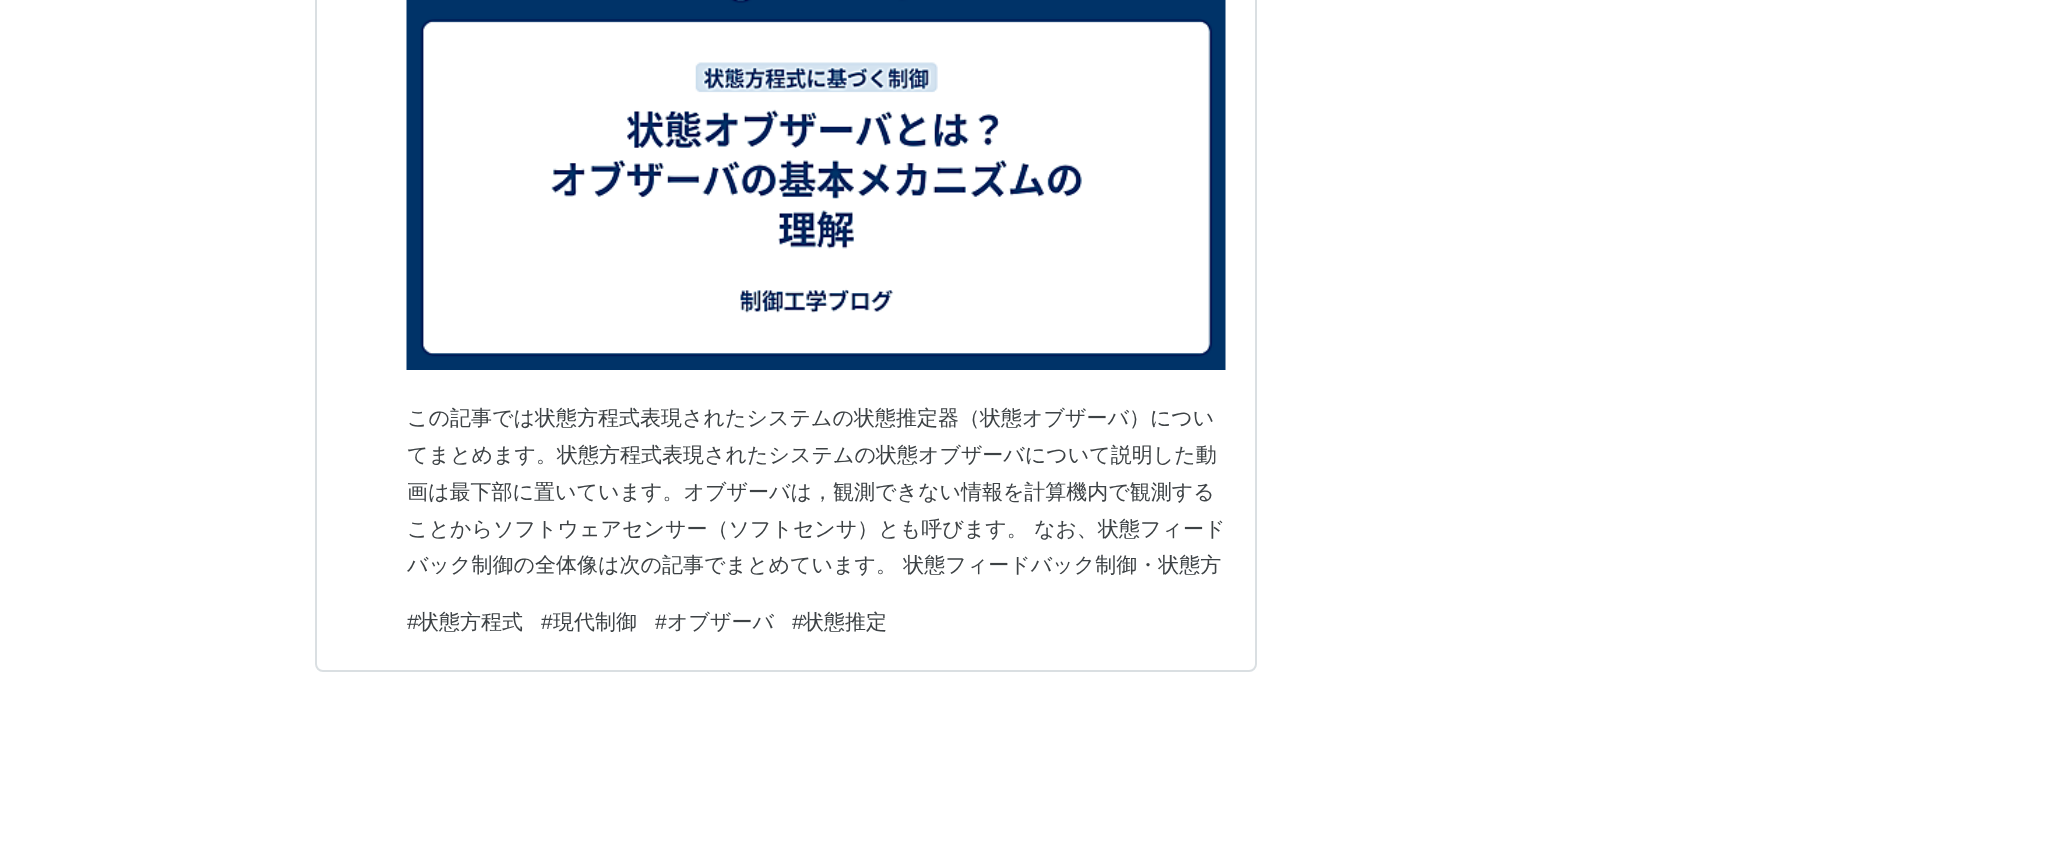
<svg xmlns="http://www.w3.org/2000/svg" width="2069" height="854" viewBox="0 0 2069 854">
  <rect width="100%" height="100%" fill="rgb(255,255,255)"/>
  <rect x="316" y="-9" width="940" height="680" rx="7" fill="none" stroke="rgb(218,223,226)" stroke-width="2"/>
  <image x="406" y="0" width="820" height="370" href="pic1.png"/>
  <g font-family="WenQuanYi Zen Hei" font-size="21" font-weight="500" fill="rgb(61,66,69)">
    <text>
      <tspan x="407" y="425">この記事では状態方程式表現されたシステムの状態推定器（状態オブザーバ）につい</tspan>
      <tspan x="407" y="462">てまとめます。状態方程式表現されたシステムの状態オブザーバについて説明した動</tspan>
      <tspan x="407" y="499">画は最下部に置いています。オブザーバは，観測できない情報を計算機内で観測する</tspan>
      <tspan x="407" y="536">ことからソフトウェアセンサー（ソフトセンサ）とも呼びます。 なお、状態フィード</tspan>
      <tspan x="407" y="572">バック制御の全体像は次の記事でまとめています。 状態フィードバック制御・状態方</tspan>
    </text>
  </g>
  <text x="407" y="629" font-family="Liberation Sans" font-size="21" fill="rgb(61,66,69)">#</text>
  <text x="418" y="629" font-family="WenQuanYi Zen Hei" font-size="21" font-weight="500" fill="rgb(61,66,69)">状態方程式</text>
  <text x="541" y="629" font-family="Liberation Sans" font-size="21" fill="rgb(61,66,69)">#</text>
  <text x="553" y="629" font-family="WenQuanYi Zen Hei" font-size="21" font-weight="500" fill="rgb(61,66,69)">現代制御</text>
  <text x="655" y="629" font-family="Liberation Sans" font-size="21" fill="rgb(61,66,69)">#</text>
  <text x="667" y="629" font-family="WenQuanYi Zen Hei" font-size="21" font-weight="500" fill="rgb(61,66,69)">オブザーバ</text>
  <text x="792" y="629" font-family="Liberation Sans" font-size="21" fill="rgb(61,66,69)">#</text>
  <text x="803" y="629" font-family="WenQuanYi Zen Hei" font-size="21" font-weight="500" fill="rgb(61,66,69)">状態推定</text>
</svg>
